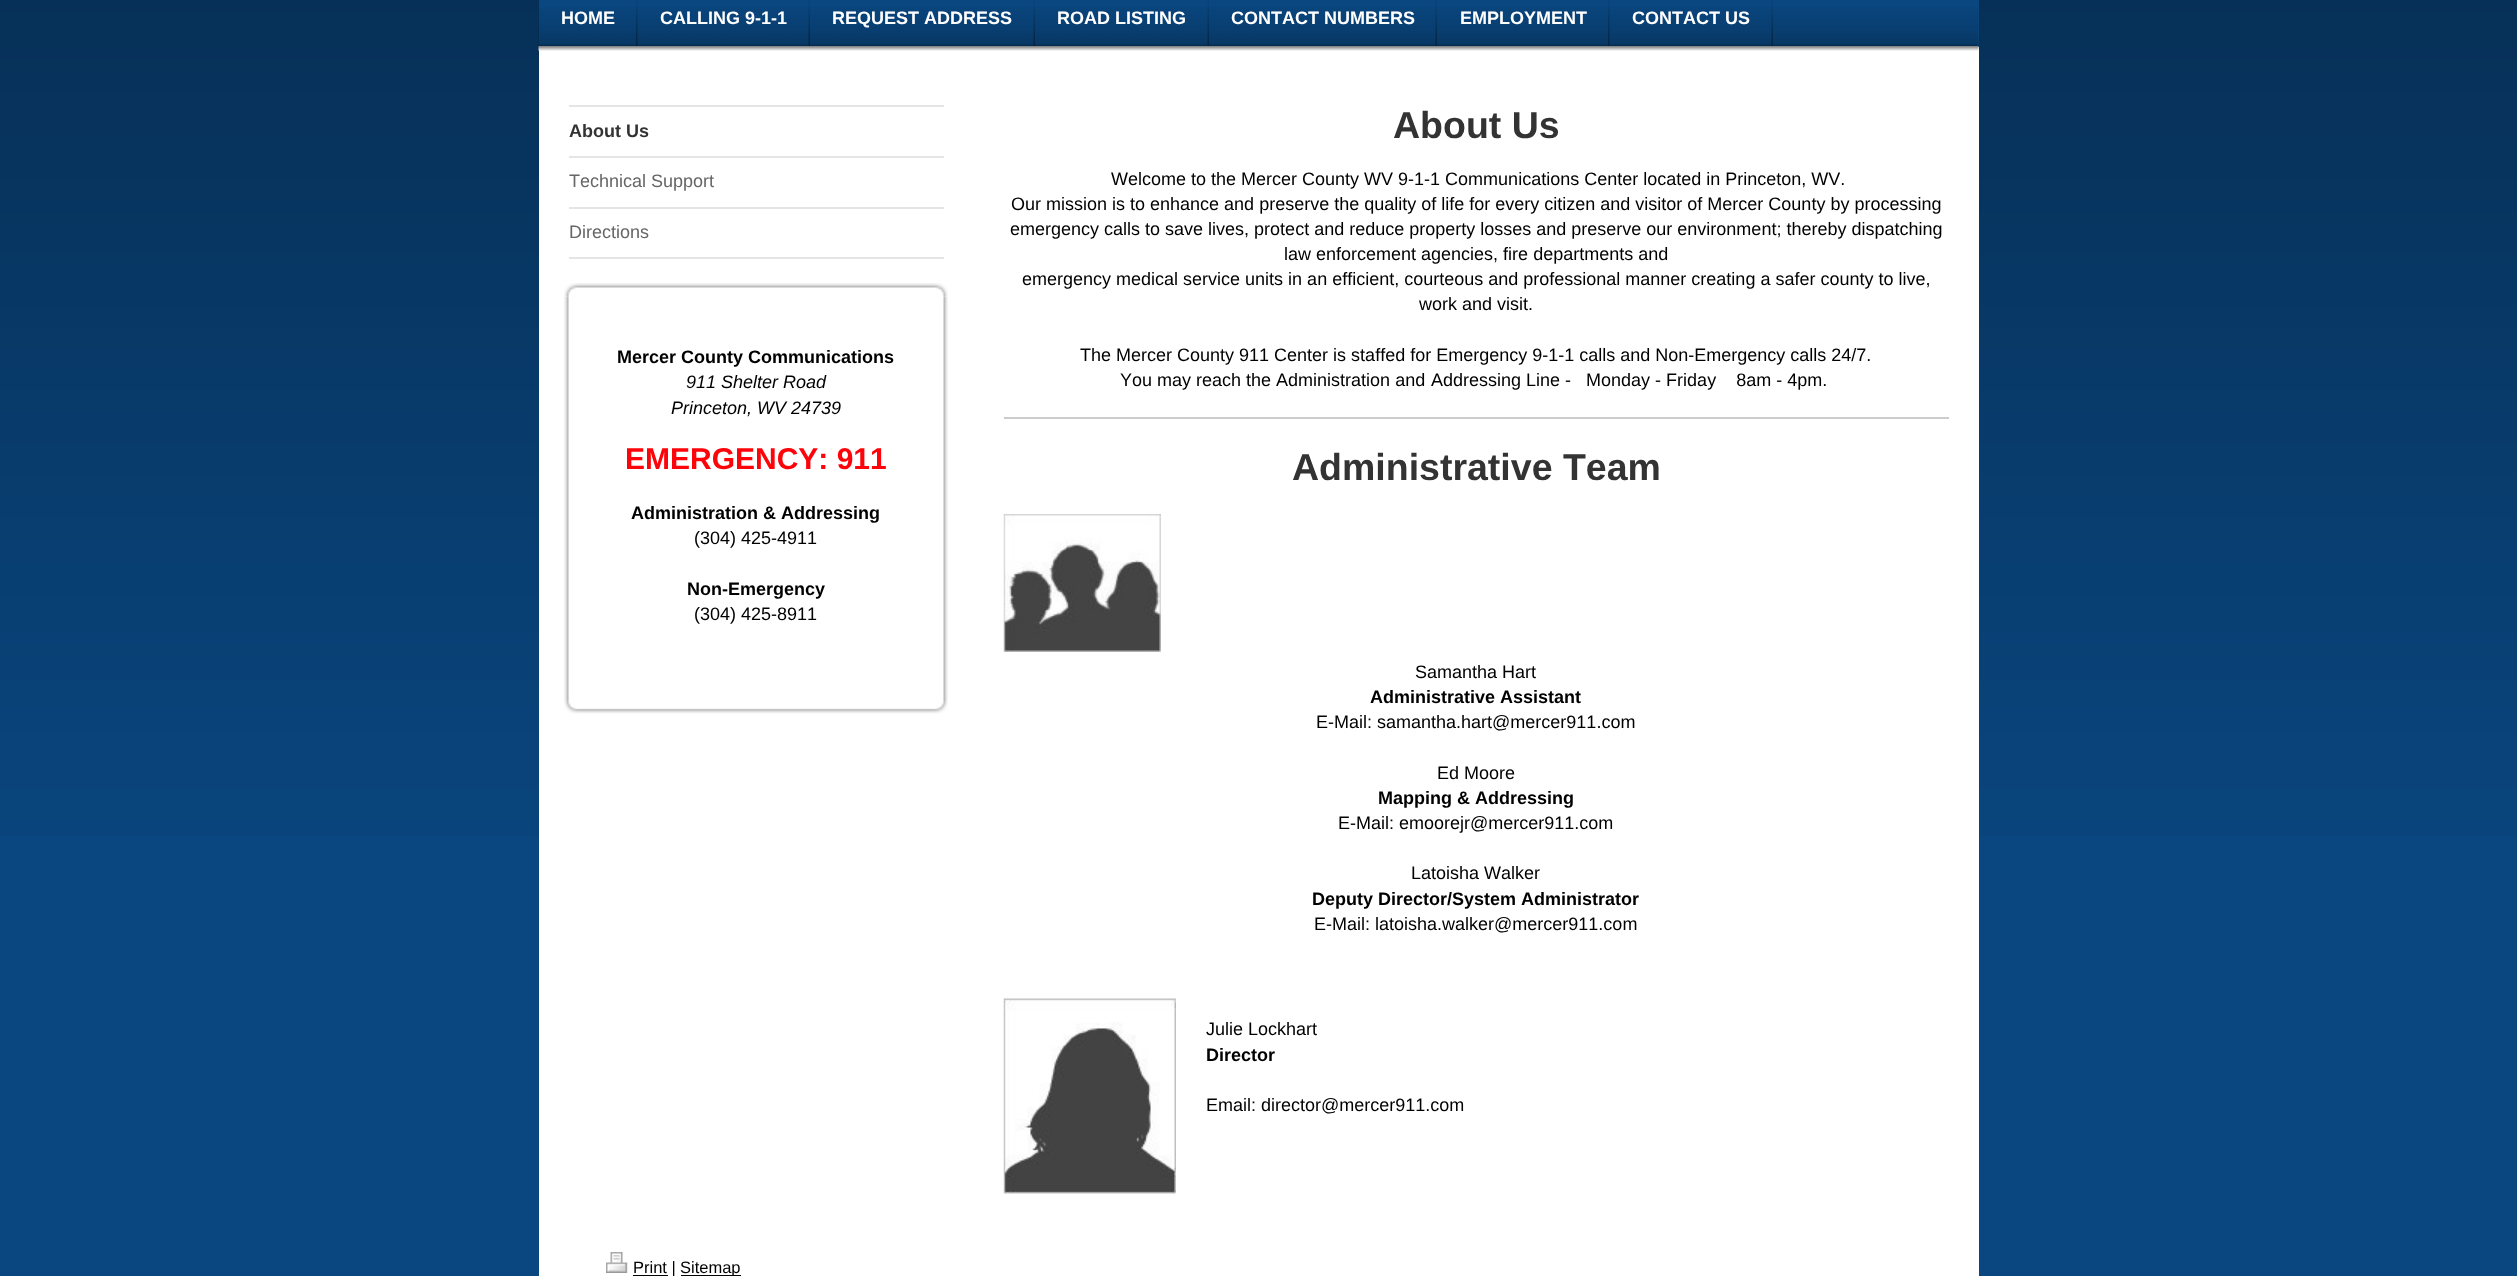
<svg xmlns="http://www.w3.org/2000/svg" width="2517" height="1276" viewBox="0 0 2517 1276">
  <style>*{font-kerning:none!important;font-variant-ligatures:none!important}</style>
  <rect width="100%" height="100%" fill="rgb(10,71,128)"/>
  <image x="0" y="0" width="2517" height="836" href="pic1.png"/>
  <rect x="539" y="47" width="1440" height="1229" fill="rgb(255,255,255)"/>
  <rect x="539" y="0" width="1440" height="47" fill="rgb(10,71,128)"/>
  <image x="538" y="7" width="1441" height="39" href="pic2.png"/>
  <image x="636" y="0" width="2" height="46" href="pic3.png"/>
  <text x="561" y="24" font-family="Liberation Sans" font-size="18" font-weight="bold" fill="rgb(255,255,255)">HOME</text>
  <image x="808" y="0" width="2" height="46" href="pic4.png"/>
  <text x="660" y="24" font-family="Liberation Sans" font-size="18" font-weight="bold" fill="rgb(255,255,255)">CALLING 9-1-1</text>
  <image x="1033" y="0" width="2" height="46" href="pic4.png"/>
  <text x="832" y="24" font-family="Liberation Sans" font-size="18" font-weight="bold" fill="rgb(255,255,255)">REQUEST ADDRESS</text>
  <image x="1207" y="0" width="2" height="46" href="pic4.png"/>
  <text x="1057" y="24" font-family="Liberation Sans" font-size="18" font-weight="bold" fill="rgb(255,255,255)">ROAD LISTING</text>
  <image x="1435" y="0" width="2" height="46" href="pic4.png"/>
  <text x="1231" y="24" font-family="Liberation Sans" font-size="18" font-weight="bold" fill="rgb(255,255,255)">CONTACT NUMBERS</text>
  <image x="1608" y="0" width="2" height="46" href="pic3.png"/>
  <text x="1460" y="24" font-family="Liberation Sans" font-size="18" font-weight="bold" fill="rgb(255,255,255)">EMPLOYMENT</text>
  <image x="1771" y="0" width="2" height="46" href="pic4.png"/>
  <text x="1632" y="24" font-family="Liberation Sans" font-size="18" font-weight="bold" fill="rgb(255,255,255)">CONTACT US</text>
  <image x="538" y="46" width="1441" height="5" href="pic5.png"/>
  <rect x="569" y="105" width="375" height="2" fill="rgb(229,229,229)"/>
  <text x="569" y="137" font-family="Liberation Sans" font-size="18" font-weight="bold" fill="rgb(51,51,51)">About Us</text>
  <rect x="569" y="156" width="375" height="2" fill="rgb(229,229,229)"/>
  <text x="569" y="187" font-family="Liberation Sans" font-size="18" fill="rgb(102,102,102)">Technical Support</text>
  <rect x="569" y="207" width="375" height="2" fill="rgb(229,229,229)"/>
  <rect x="569" y="257" width="375" height="2" fill="rgb(229,229,229)"/>
  <text x="569" y="238" font-family="Liberation Sans" font-size="18" fill="rgb(102,102,102)">Directions</text>
  <image x="564" y="283" width="384" height="14" href="pic6.png"/>
  <image x="564" y="296" width="384" height="404" href="pic7.png"/>
  <text x="617" y="363" font-family="Liberation Sans" font-size="18" font-weight="bold" fill="rgb(0,0,0)">Mercer County Communications</text>
  <g font-family="Liberation Sans" font-size="18" font-style="italic" fill="rgb(0,0,0)">
    <text x="686" y="388">911 Shelter Road</text>
    <text x="671" y="414">Princeton, WV 24739</text>
  </g>
  <text x="625" y="469" font-family="Liberation Sans" font-size="30" font-weight="bold" fill="rgb(253,4,10)">EMERGENCY: 911</text>
  <text x="631" y="519" font-family="Liberation Sans" font-size="18" font-weight="bold" fill="rgb(0,0,0)">Administration &amp; Addressing</text>
  <text x="694" y="544" font-family="Liberation Sans" font-size="18" fill="rgb(0,0,0)">(304) 425-4911</text>
  <text x="687" y="595" font-family="Liberation Sans" font-size="18" font-weight="bold" fill="rgb(0,0,0)">Non-Emergency</text>
  <text x="694" y="620" font-family="Liberation Sans" font-size="18" fill="rgb(0,0,0)">(304) 425-8911</text>
  <image x="564" y="700" width="384" height="14" href="pic8.png"/>
  <text x="1393" y="138" font-family="Liberation Sans" font-size="37.5" font-weight="bold" fill="rgb(51,51,51)">About Us</text>
  <g font-family="Liberation Sans" font-size="18" fill="rgb(0,0,0)">
    <text x="1111" y="185">Welcome to the Mercer County WV 9-1-1 Communications Center located in Princeton, WV.</text>
    <text x="1011" y="210">Our mission is to enhance and preserve the quality of life for every citizen and visitor of Mercer County by processing</text>
    <text x="1010" y="235">emergency calls to save lives, protect and reduce property losses and preserve our environment; thereby dispatching</text>
    <text x="1284" y="260">law enforcement agencies, fire departments and</text>
    <text x="1022" y="285">emergency medical service units in an efficient, courteous and professional manner creating a safer county to live,</text>
    <text x="1419" y="310">work and visit.</text>
    <text x="1080" y="361">The Mercer County 911 Center is staffed for Emergency 9-1-1 calls and Non-Emergency calls 24/7.</text>
    <text x="1120" y="386">You may reach the Administration and</text>
    <text x="1431" y="386" xml:space="preserve">Addressing Line -   Monday - Friday    8am - 4pm. </text>
  </g>
  <rect x="1004" y="417" width="945" height="2" fill="rgb(204,204,204)"/>
  <text x="1292" y="480" font-family="Liberation Sans" font-size="37.5" font-weight="bold" fill="rgb(51,51,51)">Administrative Team</text>
  <image x="1003" y="514" width="158" height="138" href="pic9.png"/>
  <text x="1415" y="678" font-family="Liberation Sans" font-size="18" fill="rgb(0,0,0)">Samantha Hart</text>
  <text x="1370" y="703" font-family="Liberation Sans" font-size="18" font-weight="bold" fill="rgb(0,0,0)">Administrative Assistant</text>
  <g font-family="Liberation Sans" font-size="18" fill="rgb(0,0,0)">
    <text x="1316" y="728">E-Mail: samantha.hart@mercer911.com</text>
    <text x="1437" y="779">Ed Moore</text>
  </g>
  <text x="1378" y="804" font-family="Liberation Sans" font-size="18" font-weight="bold" fill="rgb(0,0,0)">Mapping &amp; Addressing</text>
  <g font-family="Liberation Sans" font-size="18" fill="rgb(0,0,0)">
    <text x="1338" y="829">E-Mail: emoorejr@mercer911.com</text>
    <text x="1411" y="879">Latoisha Walker</text>
  </g>
  <text x="1312" y="905" font-family="Liberation Sans" font-size="18" font-weight="bold" fill="rgb(0,0,0)">Deputy Director/System Administrator</text>
  <text x="1314" y="930" font-family="Liberation Sans" font-size="18" fill="rgb(0,0,0)">E-Mail: latoisha.walker@mercer911.com</text>
  <image x="1003" y="998" width="173" height="196" href="pic10.png"/>
  <text x="1206" y="1035" font-family="Liberation Sans" font-size="18" fill="rgb(0,0,0)">Julie Lockhart</text>
  <text x="1206" y="1061" font-family="Liberation Sans" font-size="18" font-weight="bold" fill="rgb(0,0,0)">Director</text>
  <text x="1206" y="1111" font-family="Liberation Sans" font-size="18" fill="rgb(0,0,0)">Email: director@mercer911.com</text>
  <image x="606" y="1252" width="22" height="21" href="pic11.png"/>
  <rect x="633" y="1275" width="35" height="1" fill="rgb(0,0,0)"/>
  <text x="633" y="1273" font-family="Liberation Sans" font-size="16.5" fill="rgb(0,0,0)">Print |</text>
  <rect x="681" y="1275" width="60" height="1" fill="rgb(0,0,0)"/>
  <text x="680" y="1273" font-family="Liberation Sans" font-size="16.5" fill="rgb(0,0,0)">Sitemap</text>
</svg>
